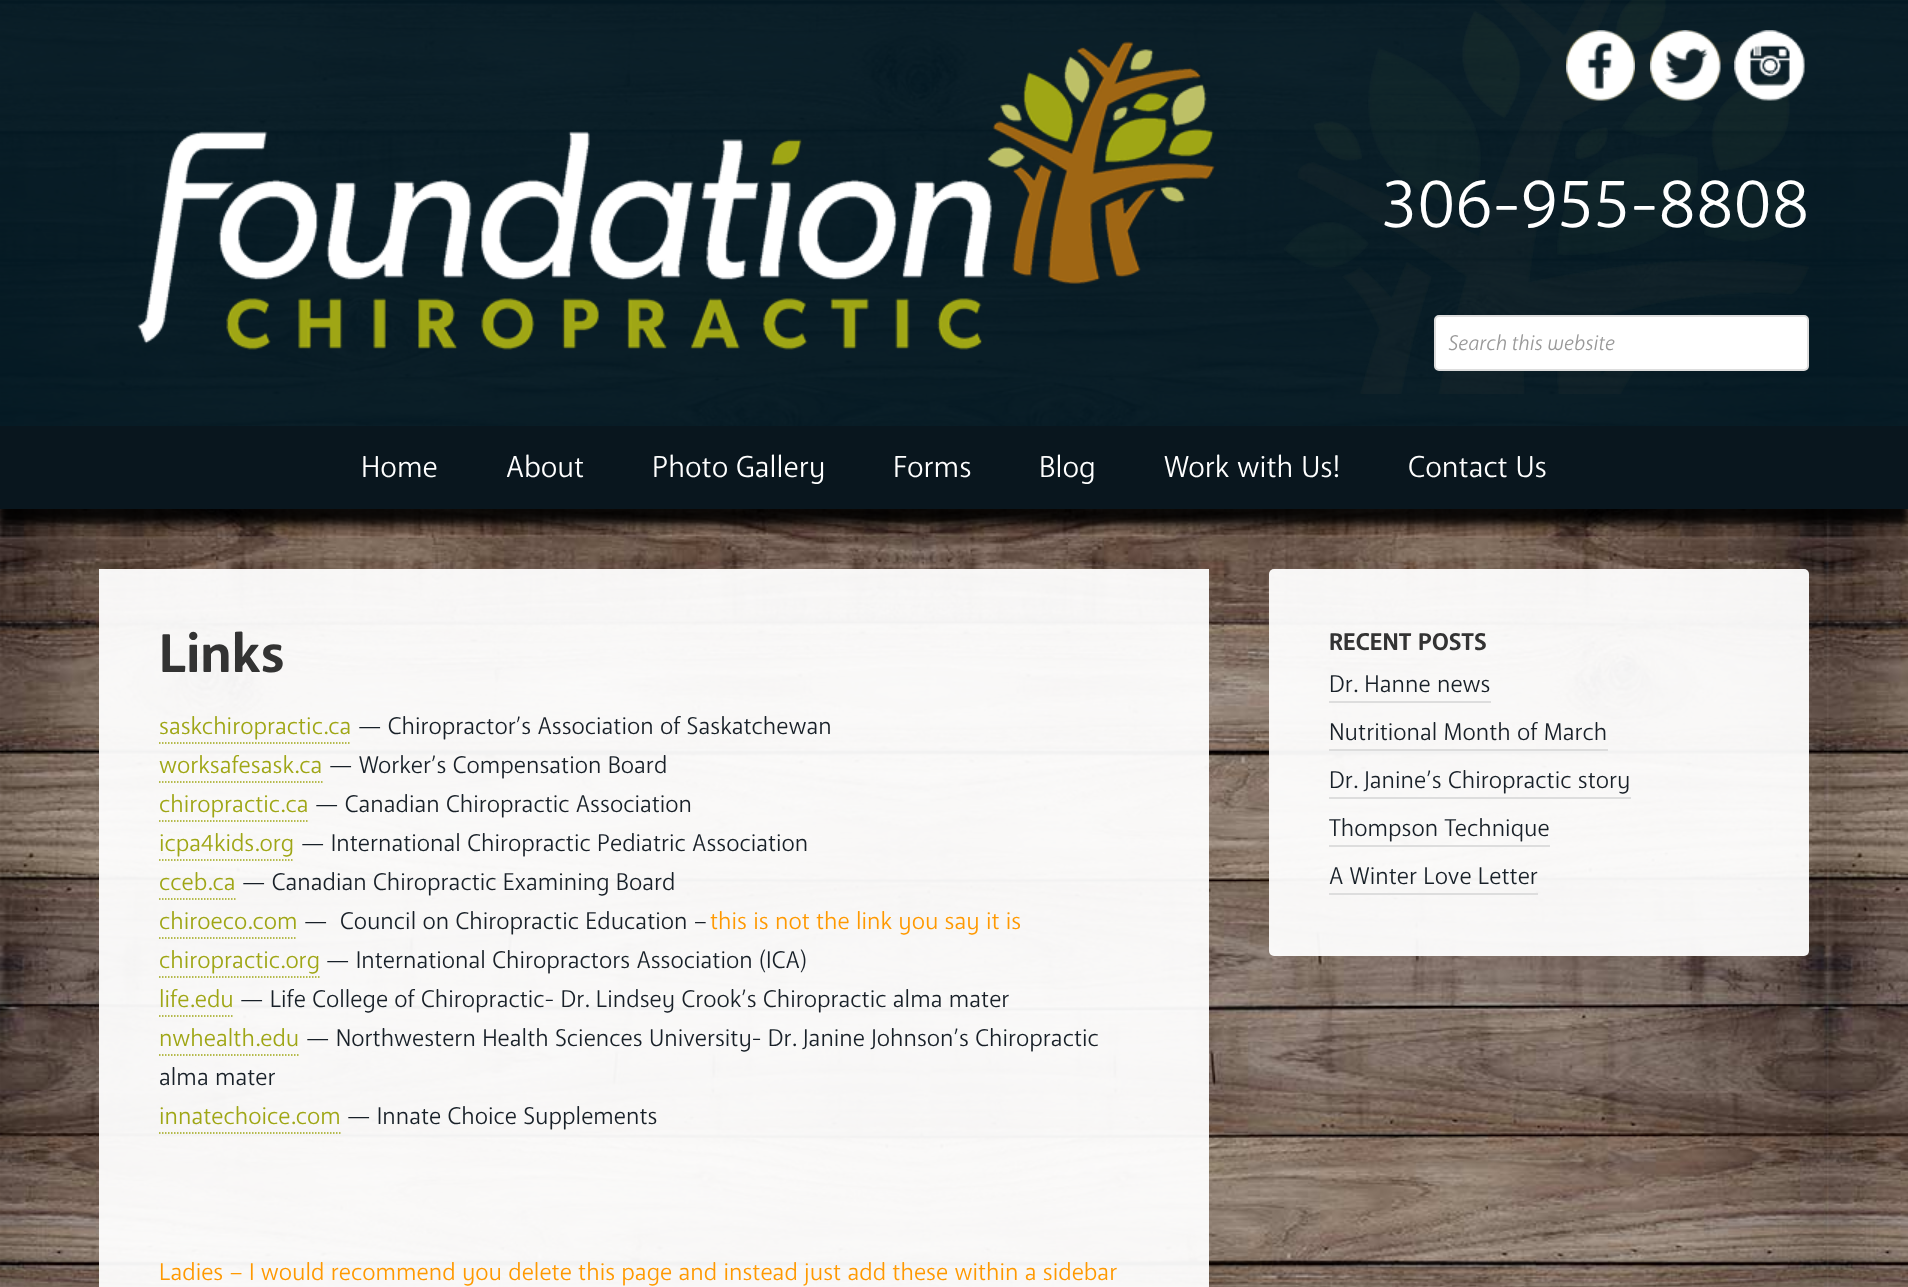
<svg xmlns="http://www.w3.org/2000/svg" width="1908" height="1287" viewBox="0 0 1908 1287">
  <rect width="100%" height="100%" fill="rgb(255,255,255)"/>
  <image x="0" y="0" width="1908" height="1287" href="pic1.png"/>
  <rect x="0" y="0" width="1908" height="426" fill="rgba(4,26,37,0.95)"/>
  <image x="137" y="41" width="1078" height="309" href="pic2.png"/>
  <image x="1284" y="0" width="525" height="394" href="pic3.png"/>
  <image x="1566" y="30" width="69" height="71" href="pic4.png"/>
  <text x="1601" y="74" font-family="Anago" font-size="30" fill="rgb(235,236,237)">.</text>
  <image x="1650" y="30" width="71" height="71" href="pic5.png"/>
  <image x="1734" y="30" width="71" height="71" href="pic6.png"/>
  <text x="1768" y="74" font-family="Anago" font-size="30" fill="rgb(134,144,149)">.</text>
  <text x="1381" y="227" font-family="Anago" font-size="69" fill="rgb(255,255,255)">306-955-8808</text>
  <rect x="1435" y="316" width="373" height="54" rx="4" fill="rgb(255,255,255)" stroke="rgb(221,221,221)" stroke-width="2"/>
  <text x="1448" y="350" font-family="Anago" font-size="21" font-style="italic" fill="rgb(153,153,153)">Search this website</text>
  <rect x="0" y="441" width="1908" height="83" fill="rgba(0,0,0,0.89)" filter="blur(4px)"/>
  <rect x="0" y="426" width="1908" height="83" fill="rgb(9,22,30)"/>
  <g font-family="Anago" font-size="30" fill="rgb(255,255,255)">
    <text x="361" y="477">Home</text>
    <text x="506" y="477">About</text>
    <text x="652" y="477">Photo Gallery</text>
    <text x="893" y="477">Forms</text>
    <text x="1039" y="477">Blog</text>
    <text x="1164" y="477">Work with Us!</text>
    <text x="1408" y="477">Contact Us</text>
  </g>
  <rect x="99" y="569" width="1110" height="718" fill="rgba(255,255,255,0.95)"/>
  <text x="159" y="672" font-family="Anago" font-size="54" font-weight="bold" fill="rgb(51,51,51)">Links</text>
  <text x="159" y="734" font-family="Anago" font-size="24" fill="rgb(159,166,21)">saskchiropractic.ca</text>
  <path d="M159 743H351" fill="none" stroke="rgb(159,166,21)" stroke-width="1.5" stroke-dasharray="1.5 1.5"/>
  <text x="358" y="734" font-family="Anago" font-size="24" fill="rgb(24,32,40)">— Chiropractor’s Association of Saskatchewan</text>
  <text x="159" y="773" font-family="Anago" font-size="24" fill="rgb(159,166,21)">worksafesask.ca</text>
  <path d="M159 782H322.5" fill="none" stroke="rgb(159,166,21)" stroke-width="1.5" stroke-dasharray="1.5 1.5"/>
  <text x="329" y="773" font-family="Anago" font-size="24" fill="rgb(24,32,40)">— Worker’s Compensation Board</text>
  <text x="159" y="812" font-family="Anago" font-size="24" fill="rgb(159,166,21)">chiropractic.ca</text>
  <path d="M159 821H309" fill="none" stroke="rgb(159,166,21)" stroke-width="1.5" stroke-dasharray="1.5 1.5"/>
  <text x="315" y="812" font-family="Anago" font-size="24" fill="rgb(24,32,40)">— Canadian Chiropractic Association</text>
  <text x="159" y="851" font-family="Anago" font-size="24" fill="rgb(159,166,21)">icpa4kids.org</text>
  <path d="M159 860H294" fill="none" stroke="rgb(159,166,21)" stroke-width="1.5" stroke-dasharray="1.5 1.5"/>
  <text x="301" y="851" font-family="Anago" font-size="24" fill="rgb(24,32,40)">— International Chiropractic Pediatric Association</text>
  <text x="159" y="890" font-family="Anago" font-size="24" fill="rgb(159,166,21)">cceb.ca</text>
  <path d="M159 899H235.5" fill="none" stroke="rgb(159,166,21)" stroke-width="1.5" stroke-dasharray="1.5 1.5"/>
  <text x="242" y="890" font-family="Anago" font-size="24" fill="rgb(24,32,40)">— Canadian Chiropractic Examining Board</text>
  <text x="159" y="929" font-family="Anago" font-size="24" fill="rgb(159,166,21)">chiroeco.com</text>
  <path d="M159 938H297" fill="none" stroke="rgb(159,166,21)" stroke-width="1.5" stroke-dasharray="1.5 1.5"/>
  <text x="304" y="929" font-family="Anago" font-size="24" fill="rgb(24,32,40)" xml:space="preserve">—  Council on Chiropractic Education –</text>
  <text x="710" y="929" font-family="Anago" font-size="24" fill="rgb(255,153,0)">this is not the link you say it is</text>
  <text x="159" y="968" font-family="Anago" font-size="24" fill="rgb(159,166,21)">chiropractic.org</text>
  <path d="M159 977H319.5" fill="none" stroke="rgb(159,166,21)" stroke-width="1.5" stroke-dasharray="1.5 1.5"/>
  <text x="326" y="968" font-family="Anago" font-size="24" fill="rgb(24,32,40)">— International Chiropractors Association (ICA)</text>
  <text x="159" y="1007" font-family="Anago" font-size="24" fill="rgb(159,166,21)">life.edu</text>
  <path d="M159 1016H234" fill="none" stroke="rgb(159,166,21)" stroke-width="1.5" stroke-dasharray="1.5 1.5"/>
  <text x="240" y="1007" font-family="Anago" font-size="24" fill="rgb(24,32,40)">— Life College of Chiropractic- Dr. Lindsey Crook’s Chiropractic alma mater</text>
  <text x="159" y="1046" font-family="Anago" font-size="24" fill="rgb(159,166,21)">nwhealth.edu</text>
  <path d="M159 1055H300" fill="none" stroke="rgb(159,166,21)" stroke-width="1.5" stroke-dasharray="1.5 1.5"/>
  <g font-family="Anago" font-size="24" fill="rgb(24,32,40)">
    <text x="306" y="1046">— Northwestern Health Sciences University- Dr. Janine Johnson’s Chiropractic</text>
    <text x="159" y="1085">alma mater</text>
  </g>
  <text x="159" y="1124" font-family="Anago" font-size="24" fill="rgb(159,166,21)">innatechoice.com</text>
  <path d="M159 1133H340.5" fill="none" stroke="rgb(159,166,21)" stroke-width="1.5" stroke-dasharray="1.5 1.5"/>
  <text x="347" y="1124" font-family="Anago" font-size="24" fill="rgb(24,32,40)">— Innate Choice Supplements</text>
  <text x="159" y="1280" font-family="Anago" font-size="24" fill="rgb(255,153,0)">Ladies – I would recommend you delete this page and instead just add these within a sidebar</text>
  <rect x="1269" y="569" width="540" height="387" rx="5" fill="rgba(255,255,255,0.95)"/>
  <text x="1329" y="650" font-family="Anago" font-size="24" font-weight="bold" fill="rgb(51,51,51)">RECENT POSTS</text>
  <text x="1329" y="692" font-family="Anago" font-size="24" fill="rgb(24,32,40)">Dr. Hanne news</text>
  <rect x="1329" y="701" width="162" height="2" fill="rgb(221,221,221)"/>
  <text x="1329" y="740" font-family="Anago" font-size="24" fill="rgb(24,32,40)">Nutritional Month of March</text>
  <rect x="1329" y="749" width="279" height="2" fill="rgb(221,221,221)"/>
  <text x="1329" y="788" font-family="Anago" font-size="24" fill="rgb(24,32,40)">Dr. Janine’s Chiropractic story</text>
  <rect x="1329" y="797" width="302" height="2" fill="rgb(221,221,221)"/>
  <text x="1329" y="836" font-family="Anago" font-size="24" fill="rgb(24,32,40)">Thompson Technique</text>
  <rect x="1329" y="845" width="221" height="2" fill="rgb(221,221,221)"/>
  <text x="1329" y="884" font-family="Anago" font-size="24" fill="rgb(24,32,40)">A Winter Love Letter</text>
  <rect x="1329" y="893" width="209" height="2" fill="rgb(221,221,221)"/>
</svg>
